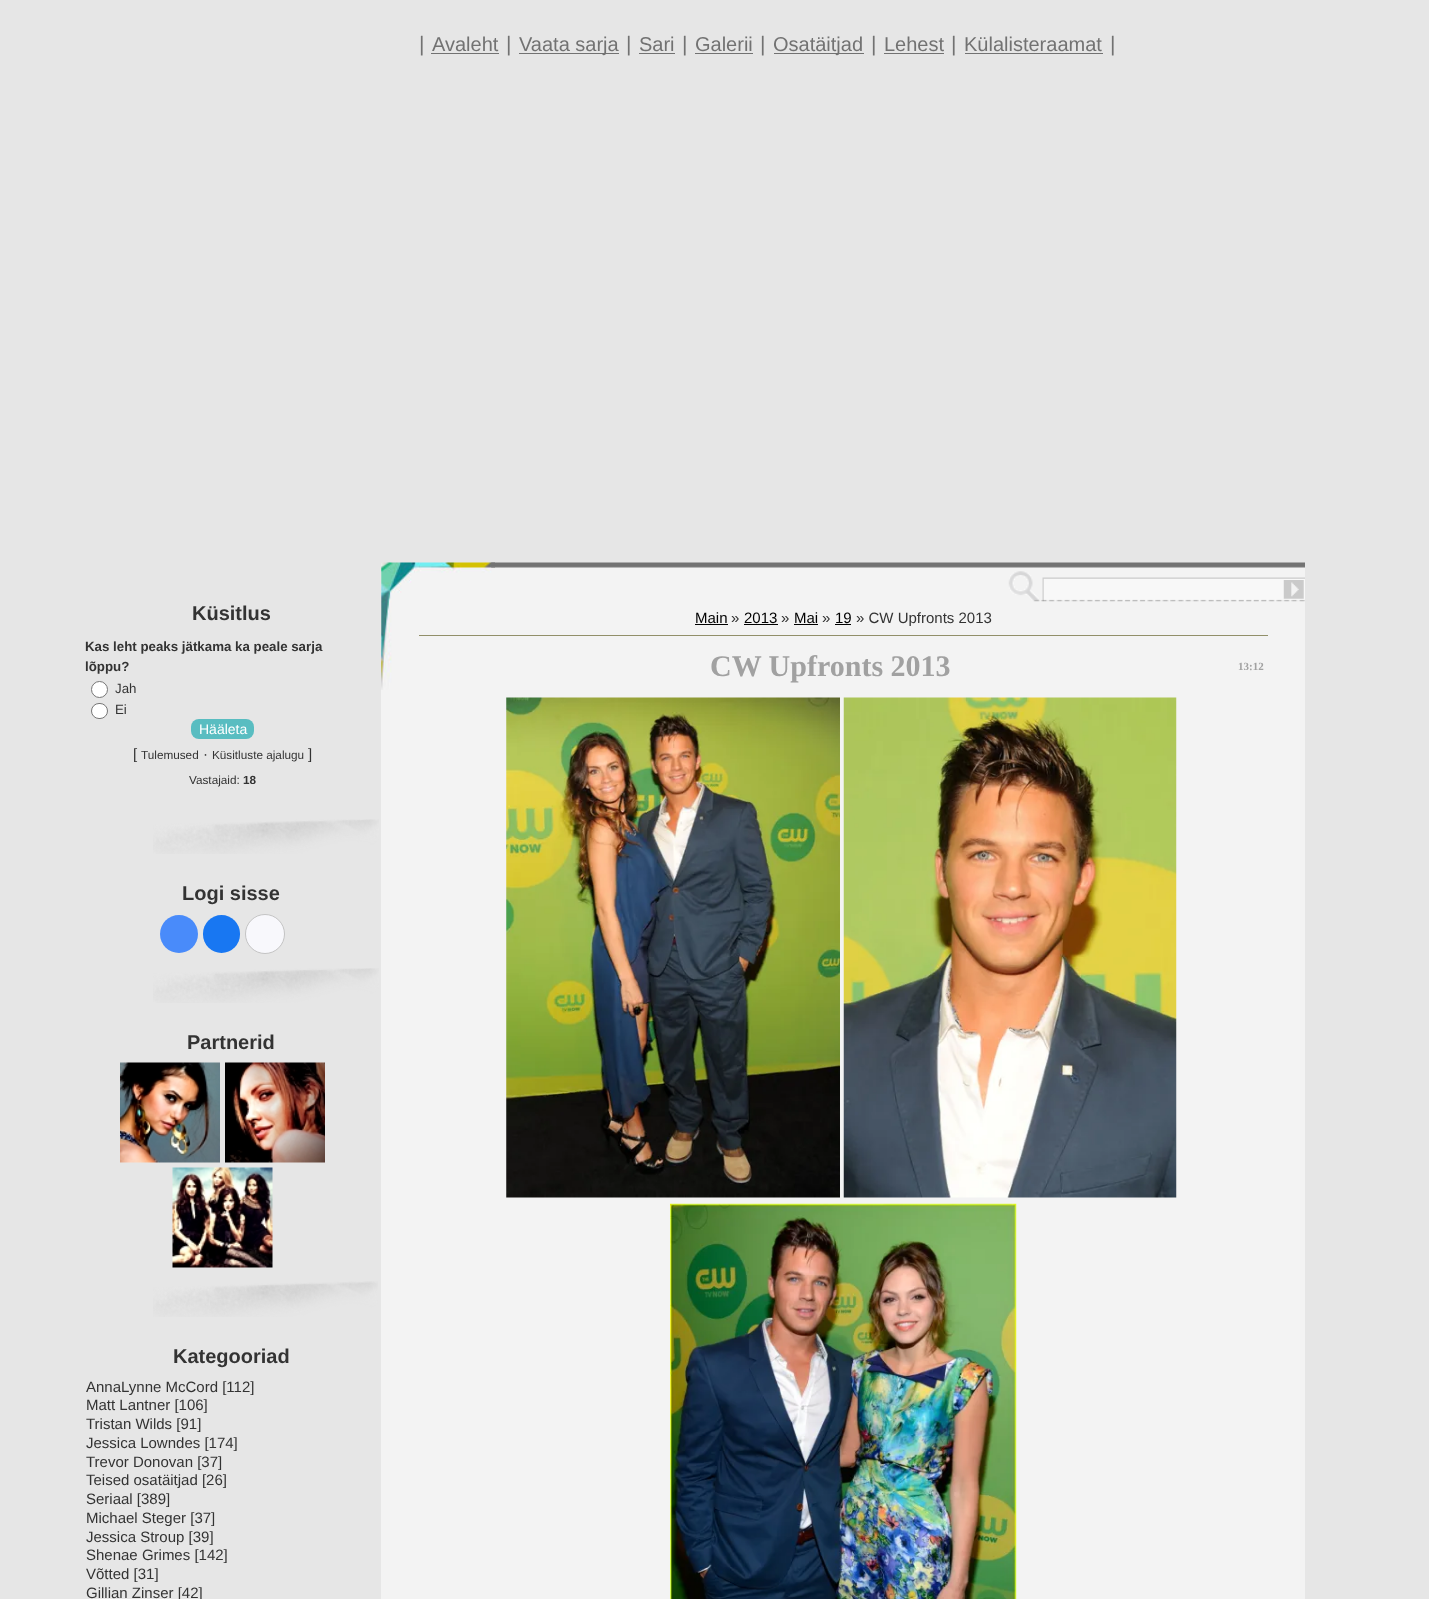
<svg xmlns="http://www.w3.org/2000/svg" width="1429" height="1599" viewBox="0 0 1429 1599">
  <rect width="100%" height="100%" fill="rgb(230,230,230)"/>
  <text x="419" y="51" font-family="Liberation Sans" font-size="21" fill="rgb(114,114,114)">|</text>
  <text x="432" y="51" font-family="Liberation Sans" font-size="20" fill="rgb(114,114,114)">Avaleht</text>
  <rect x="431" y="53" width="68" height="1" fill="rgb(114,114,114)"/>
  <text x="506" y="51" font-family="Liberation Sans" font-size="21" fill="rgb(114,114,114)">|</text>
  <rect x="519" y="53" width="100" height="1" fill="rgb(114,114,114)"/>
  <text x="519" y="51" font-family="Liberation Sans" font-size="20" fill="rgb(114,114,114)">Vaata sarja</text>
  <text x="626" y="51" font-family="Liberation Sans" font-size="21" fill="rgb(114,114,114)">|</text>
  <text x="639" y="51" font-family="Liberation Sans" font-size="20" fill="rgb(114,114,114)">Sari</text>
  <rect x="639" y="53" width="36" height="1" fill="rgb(114,114,114)"/>
  <text x="682" y="51" font-family="Liberation Sans" font-size="21" fill="rgb(114,114,114)">|</text>
  <text x="695" y="51" font-family="Liberation Sans" font-size="20" fill="rgb(114,114,114)">Galerii</text>
  <rect x="695" y="53" width="58" height="1" fill="rgb(114,114,114)"/>
  <text x="760" y="51" font-family="Liberation Sans" font-size="21" fill="rgb(114,114,114)">|</text>
  <rect x="774" y="53" width="90" height="1" fill="rgb(114,114,114)"/>
  <text x="773" y="51" font-family="Liberation Sans" font-size="20" fill="rgb(114,114,114)">Osatäitjad</text>
  <text x="871" y="51" font-family="Liberation Sans" font-size="21" fill="rgb(114,114,114)">|</text>
  <text x="884" y="51" font-family="Liberation Sans" font-size="20" fill="rgb(114,114,114)">Lehest</text>
  <rect x="884" y="53" width="60" height="1" fill="rgb(114,114,114)"/>
  <text x="951" y="51" font-family="Liberation Sans" font-size="21" fill="rgb(114,114,114)">|</text>
  <text x="964" y="51" font-family="Liberation Sans" font-size="20" fill="rgb(114,114,114)">Külalisteraamat</text>
  <rect x="965" y="53" width="138" height="1" fill="rgb(114,114,114)"/>
  <text x="1110" y="51" font-family="Liberation Sans" font-size="21" fill="rgb(114,114,114)">|</text>
  <image x="153" y="819" width="226" height="35" href="pic1.png"/>
  <text x="192" y="620" font-family="Liberation Sans" font-size="20" font-weight="bold" fill="rgb(51,51,51)">Küsitlus</text>
  <g font-family="Liberation Sans" font-size="13.3" font-weight="bold" fill="rgb(51,51,51)">
    <text>
      <tspan x="85" y="651">Kas leht peaks jätkama ka peale sarja</tspan>
      <tspan x="85" y="671">lõppu?</tspan>
    </text>
  </g>
  <circle cx="99.5" cy="689.5" r="8" fill="rgb(255,255,255)" stroke="rgb(118,118,118)"/>
  <text x="115" y="693" font-family="Liberation Sans" font-size="13.3" fill="rgb(51,51,51)">Jah</text>
  <rect x="91.5" y="703.5" width="16" height="15" rx="7.5" fill="rgb(255,255,255)" stroke="rgb(118,118,118)"/>
  <text x="115" y="714" font-family="Liberation Sans" font-size="13.3" fill="rgb(51,51,51)">Ei</text>
  <rect x="191" y="719" width="63" height="20" rx="8" fill="rgb(89,189,193)"/>
  <text x="199" y="734" font-family="Liberation Sans" font-size="14" fill="rgb(255,255,255)">Hääleta</text>
  <text x="133" y="759" font-family="Liberation Sans" font-size="15" fill="rgb(51,51,51)">[</text>
  <text x="141" y="759" font-family="Liberation Sans" font-size="11.75" fill="rgb(51,51,51)">Tulemused</text>
  <text x="203" y="759" font-family="Liberation Sans" font-size="15" fill="rgb(51,51,51)">·</text>
  <text x="212" y="759" font-family="Liberation Sans" font-size="11.75" fill="rgb(51,51,51)">Küsitluste ajalugu</text>
  <text x="308" y="759" font-family="Liberation Sans" font-size="15" fill="rgb(51,51,51)">]</text>
  <text x="189" y="784" font-family="Liberation Sans" font-size="11.75" fill="rgb(51,51,51)">Vastajaid:</text>
  <text x="243" y="784" font-family="Liberation Sans" font-size="11.75" font-weight="bold" fill="rgb(51,51,51)">18</text>
  <image x="153" y="968" width="226" height="35" href="pic2.png"/>
  <text x="182" y="900" font-family="Liberation Sans" font-size="20" font-weight="bold" fill="rgb(51,51,51)">Logi sisse</text>
  <circle cx="179" cy="934" r="19" fill="rgb(73,139,250)"/>
  <rect x="203" y="915" width="37" height="38" rx="18.5" fill="rgb(24,119,242)"/>
  <circle cx="265" cy="934" r="19.5" fill="rgb(248,248,252)" stroke="rgb(196,196,196)"/>
  <image x="153" y="1281" width="225" height="36" href="pic3.png"/>
  <text x="187" y="1049" font-family="Liberation Sans" font-size="20" font-weight="bold" fill="rgb(51,51,51)">Partnerid</text>
  <image x="120" y="1062" width="100" height="101" href="pic4.png"/>
  <image x="225" y="1062" width="100" height="101" href="pic5.png"/>
  <image x="172" y="1167" width="101" height="101" href="pic6.png"/>
  <text x="173" y="1363" font-family="Liberation Sans" font-size="20" font-weight="bold" fill="rgb(51,51,51)">Kategooriad</text>
  <g font-family="Liberation Sans" font-size="15" fill="rgb(51,51,51)">
    <text>
      <tspan x="86" y="1392">AnnaLynne McCord [112]</tspan>
      <tspan x="86" y="1410">Matt Lantner [106]</tspan>
      <tspan x="86" y="1429">Tristan Wilds [91]</tspan>
      <tspan x="86" y="1448">Jessica Lowndes [174]</tspan>
      <tspan x="86" y="1467">Trevor Donovan [37]</tspan>
      <tspan x="86" y="1485">Teised osatäitjad [26]</tspan>
      <tspan x="86" y="1504">Seriaal [389]</tspan>
      <tspan x="86" y="1523">Michael Steger [37]</tspan>
      <tspan x="86" y="1542">Jessica Stroup [39]</tspan>
      <tspan x="86" y="1560">Shenae Grimes [142]</tspan>
      <tspan x="86" y="1579">Võtted [31]</tspan>
      <tspan x="86" y="1598">Gillian Zinser [42]</tspan>
    </text>
  </g>
  <rect x="381" y="563" width="924" height="1036" fill="rgb(243,243,243)"/>
  <image x="381" y="562" width="114" height="128" href="pic7.png"/>
  <image x="491" y="562" width="814" height="6" href="pic8.png"/>
  <image x="1008" y="571" width="297" height="31" href="pic9.png"/>
  <image x="1283" y="580" width="21" height="19" href="pic10.png"/>
  <text x="695" y="623" font-family="Liberation Sans" font-size="15" fill="rgb(0,0,0)">Main</text>
  <rect x="695" y="624" width="33" height="1" fill="rgb(0,0,0)"/>
  <text x="731" y="623" font-family="Liberation Sans" font-size="15" fill="rgb(51,51,51)">»</text>
  <text x="744" y="623" font-family="Liberation Sans" font-size="15" fill="rgb(0,0,0)">2013</text>
  <rect x="744" y="624" width="34" height="1" fill="rgb(0,0,0)"/>
  <text x="781" y="623" font-family="Liberation Sans" font-size="15" fill="rgb(51,51,51)">»</text>
  <text x="794" y="623" font-family="Liberation Sans" font-size="15" fill="rgb(0,0,0)">Mai</text>
  <rect x="794" y="624" width="24" height="1" fill="rgb(0,0,0)"/>
  <text x="822" y="623" font-family="Liberation Sans" font-size="15" fill="rgb(51,51,51)">»</text>
  <text x="835" y="623" font-family="Liberation Sans" font-size="15" fill="rgb(0,0,0)">19</text>
  <rect x="835" y="624" width="16" height="1" fill="rgb(0,0,0)"/>
  <text x="856" y="623" font-family="Liberation Sans" font-size="15" fill="rgb(51,51,51)">» CW Upfronts 2013</text>
  <rect x="419" y="635" width="849" height="1" fill="rgb(145,143,105)"/>
  <text x="710" y="676" font-family="Liberation Serif" font-size="30" font-weight="bold" fill="rgb(161,161,161)">CW Upfronts 2013</text>
  <text x="1238" y="670" font-family="Liberation Serif" font-size="11" font-weight="bold" fill="rgb(161,161,161)">13:12</text>
  <image x="506" y="697" width="334" height="501" href="pic11.png"/>
  <image x="843" y="697" width="334" height="501" href="pic12.png"/>
  <image x="670" y="1203" width="347" height="396" href="pic13.png"/>
</svg>
